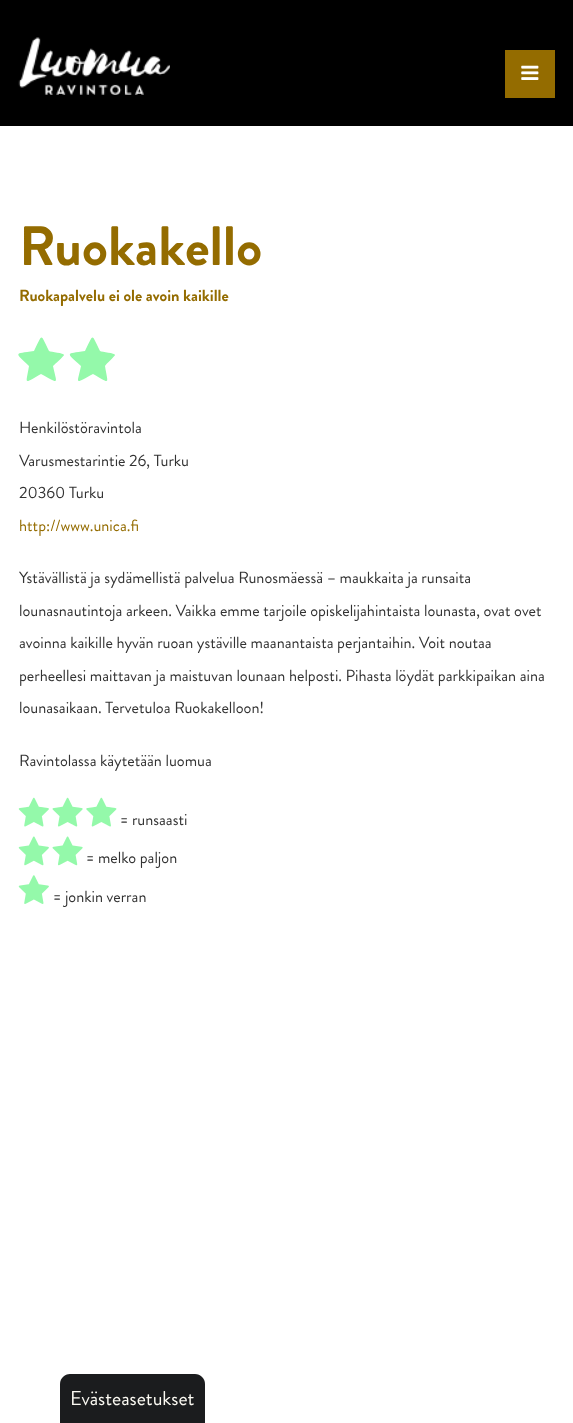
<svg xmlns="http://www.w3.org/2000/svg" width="573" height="1423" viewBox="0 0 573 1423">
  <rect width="100%" height="100%" fill="rgb(255,255,255)"/>
  <rect x="0" y="0" width="573" height="126" fill="rgb(0,0,0)"/>
  <image x="18" y="37" width="152" height="58" href="pic1.png"/>
  <rect x="505" y="50" width="50" height="48" fill="rgb(148,108,0)"/>
  <image x="521" y="65" width="18" height="15" href="pic2.png"/>
  <text x="19" y="265" font-family="Brandon Grotesque" font-size="55.25" font-weight="bold" fill="rgb(148,108,0)">Ruokakello</text>
  <text x="19" y="301" font-family="Brandon Grotesque" font-size="16.25" font-weight="bold" fill="rgb(148,108,0)">Ruokapalvelu ei ole avoin kaikille</text>
  <path d="M64 355C64 356 55 364 53 366C57 385 60 384 41 374C23 384 26 385 29 366C15 352 13 354 34 351C43 333 40 333 49 351C51 352 64 353 64 355Z" fill="rgb(148,249,170)"/>
  <path d="M115 355C115 356 106 364 105 366C108 385 111 384 93 374C74 384 77 385 81 366C66 352 65 354 85 351C94 333 91 333 100 351C102 352 115 353 115 355Z" fill="rgb(148,249,170)"/>
  <g font-family="Brandon Grotesque" font-size="16.25" fill="rgb(51,51,51)">
    <text x="19" y="433">Henkilöstöravintola</text>
    <text>
      <tspan x="19" y="466">Varusmestarintie 26, Turku</tspan>
      <tspan x="19" y="498">20360 Turku</tspan>
    </text>
  </g>
  <text x="19" y="531" font-family="Brandon Grotesque" font-size="16.25" fill="rgb(148,108,0)">http://www.unica.fi</text>
  <g font-family="Brandon Grotesque" font-size="16.25" fill="rgb(51,51,51)">
    <text x="19" y="583">Ystävällistä ja sydämellistä palvelua Runosmäessä – maukkaita ja runsaita</text>
    <text>
      <tspan x="19" y="616">lounasnautintoja arkeen. Vaikka emme tarjoile opiskelijahintaista lounasta, ovat ovet</tspan>
      <tspan x="19" y="648">avoinna kaikille hyvän ruoan ystäville maanantaista perjantaihin. Voit noutaa</tspan>
    </text>
    <text>
      <tspan x="19" y="681">perheellesi maittavan ja maistuvan lounaan helposti. Pihasta löydät parkkipaikan aina</tspan>
      <tspan x="19" y="713">lounasaikaan. Tervetuloa Ruokakelloon!</tspan>
    </text>
    <text x="19" y="766">Ravintolassa käytetään luomua</text>
  </g>
  <image x="18" y="797" width="31" height="30" href="pic3.png"/>
  <image x="52" y="797" width="31" height="30" href="pic4.png"/>
  <image x="86" y="797" width="31" height="30" href="pic5.png"/>
  <text x="120" y="825" font-family="Brandon Grotesque" font-size="16.25" fill="rgb(51,51,51)">= runsaasti</text>
  <image x="18" y="836" width="31" height="30" href="pic6.png"/>
  <image x="52" y="836" width="31" height="30" href="pic7.png"/>
  <text x="86" y="863" font-family="Brandon Grotesque" font-size="16.25" fill="rgb(51,51,51)">= melko paljon</text>
  <image x="18" y="875" width="31" height="29" href="pic8.png"/>
  <text x="53" y="902" font-family="Brandon Grotesque" font-size="16.25" fill="rgb(51,51,51)">= jonkin verran</text>
  <path d="M70 1374H195C200.5 1374 205 1378.5 205 1384V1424H60V1384C60 1378.5 64.5 1374 70 1374Z" fill="rgb(27,28,30)"/>
  <text x="70" y="1405" font-family="Brandon Grotesque" font-size="20" fill="rgb(251,249,242)">Evästeasetukset</text>
</svg>
